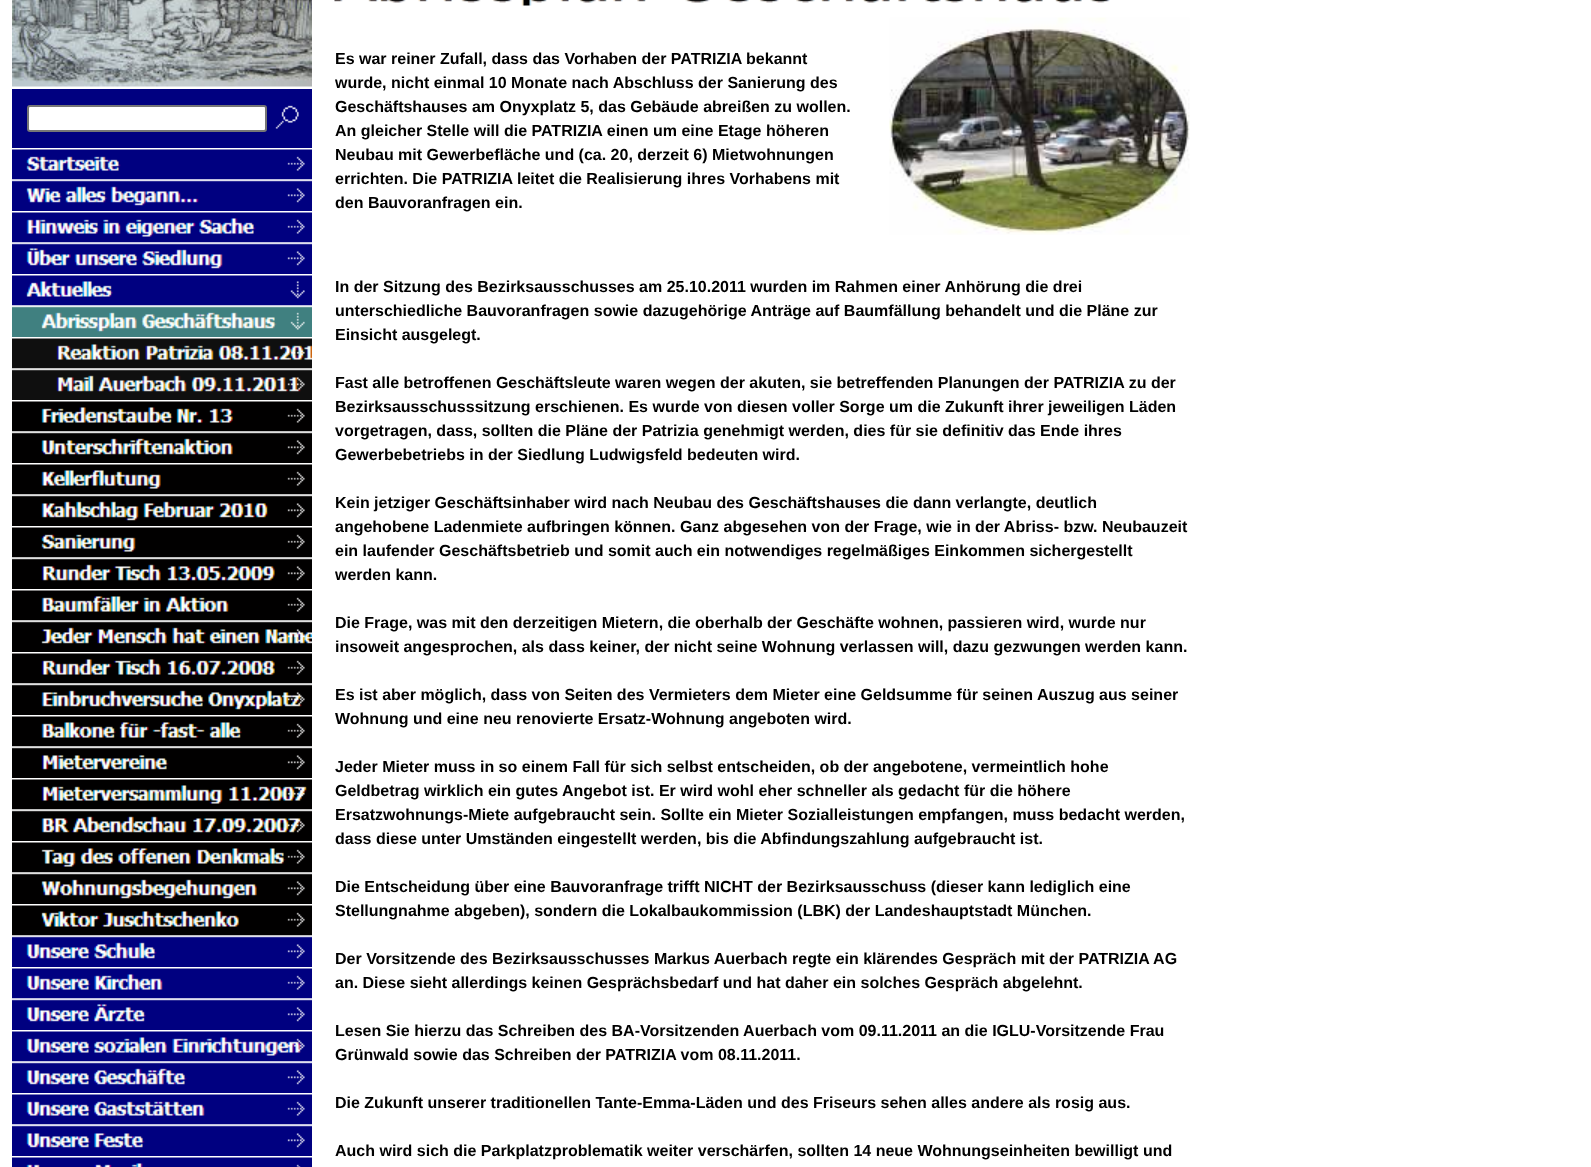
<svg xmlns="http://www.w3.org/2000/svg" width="1591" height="1167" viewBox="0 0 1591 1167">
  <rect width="100%" height="100%" fill="rgb(255,255,255)"/>
  <image x="12" y="0" width="300" height="87" href="pic1.png"/>
  <rect x="12" y="89" width="300" height="59" fill="rgb(0,0,128)"/>
  <rect x="28" y="106" width="238" height="25" rx="2" fill="rgb(255,255,255)" stroke="rgb(118,118,118)" stroke-width="2"/>
  <image x="275" y="105" width="24" height="24" href="pic2.png"/>
  <image x="12" y="148" width="300" height="32" href="pic3.png"/>
  <image x="12" y="179" width="300" height="32" href="pic4.png"/>
  <image x="12" y="212" width="300" height="31" href="pic5.png"/>
  <image x="12" y="242" width="300" height="32" href="pic6.png"/>
  <image x="12" y="275" width="300" height="31" href="pic7.png"/>
  <image x="12" y="305" width="300" height="32" href="pic8.png"/>
  <image x="12" y="338" width="300" height="31" href="pic9.png"/>
  <image x="12" y="368" width="300" height="32" href="pic10.png"/>
  <image x="12" y="401" width="300" height="31" href="pic11.png"/>
  <image x="12" y="431" width="300" height="32" href="pic12.png"/>
  <image x="12" y="464" width="300" height="31" href="pic13.png"/>
  <image x="12" y="494" width="300" height="32" href="pic14.png"/>
  <image x="12" y="527" width="300" height="31" href="pic15.png"/>
  <image x="12" y="557" width="300" height="32" href="pic16.png"/>
  <image x="12" y="590" width="300" height="31" href="pic17.png"/>
  <image x="12" y="620" width="300" height="32" href="pic18.png"/>
  <image x="12" y="653" width="300" height="31" href="pic19.png"/>
  <image x="12" y="683" width="300" height="32" href="pic20.png"/>
  <image x="12" y="716" width="300" height="31" href="pic21.png"/>
  <image x="12" y="746" width="300" height="32" href="pic22.png"/>
  <image x="12" y="779" width="300" height="31" href="pic23.png"/>
  <image x="12" y="809" width="300" height="32" href="pic24.png"/>
  <image x="12" y="842" width="300" height="31" href="pic25.png"/>
  <image x="12" y="872" width="300" height="32" href="pic26.png"/>
  <image x="12" y="905" width="300" height="31" href="pic27.png"/>
  <image x="12" y="935" width="300" height="32" href="pic28.png"/>
  <image x="12" y="968" width="300" height="31" href="pic29.png"/>
  <image x="12" y="998" width="300" height="32" href="pic30.png"/>
  <image x="12" y="1031" width="300" height="31" href="pic31.png"/>
  <image x="12" y="1061" width="300" height="32" href="pic32.png"/>
  <image x="12" y="1094" width="300" height="31" href="pic33.png"/>
  <image x="12" y="1124" width="300" height="32" href="pic34.png"/>
  <image x="12" y="1157" width="300" height="10" href="pic35.png"/>
  <image x="334" y="0" width="776" height="6" href="pic36.png"/>
  <g font-family="Liberation Sans" font-size="16" font-weight="bold" fill="rgb(0,0,0)">
    <text>
      <tspan x="335" y="64">Es war reiner Zufall, dass das Vorhaben der PATRIZIA bekannt</tspan>
      <tspan x="335" y="88">wurde, nicht einmal 10 Monate nach Abschluss der Sanierung des</tspan>
      <tspan x="335" y="112">Geschäftshauses am Onyxplatz 5, das Gebäude abreißen zu wollen.</tspan>
      <tspan x="335" y="136">An gleicher Stelle will die PATRIZIA einen um eine Etage höheren</tspan>
      <tspan x="335" y="160">Neubau mit Gewerbefläche und (ca. 20, derzeit 6) Mietwohnungen</tspan>
      <tspan x="335" y="184">errichten. Die PATRIZIA leitet die Realisierung ihres Vorhabens mit</tspan>
      <tspan x="335" y="208">den Bauvoranfragen ein.</tspan>
    </text>
  </g>
  <image x="889" y="17" width="301" height="218" href="pic37.png"/>
  <g font-family="Liberation Sans" font-size="16" font-weight="bold" fill="rgb(0,0,0)">
    <text>
      <tspan x="335" y="292">In der Sitzung des Bezirksausschusses am 25.10.2011 wurden im Rahmen einer Anhörung die drei</tspan>
      <tspan x="335" y="316">unterschiedliche Bauvoranfragen sowie dazugehörige Anträge auf Baumfällung behandelt und die Pläne zur</tspan>
      <tspan x="335" y="340">Einsicht ausgelegt.</tspan>
    </text>
    <text>
      <tspan x="335" y="388">Fast alle betroffenen Geschäftsleute waren wegen der akuten, sie betreffenden Planungen der PATRIZIA zu der</tspan>
      <tspan x="335" y="412">Bezirksausschusssitzung erschienen. Es wurde von diesen voller Sorge um die Zukunft ihrer jeweiligen Läden</tspan>
      <tspan x="335" y="436">vorgetragen, dass, sollten die Pläne der Patrizia genehmigt werden, dies für sie definitiv das Ende ihres</tspan>
      <tspan x="335" y="460">Gewerbebetriebs in der Siedlung Ludwigsfeld bedeuten wird.</tspan>
    </text>
    <text>
      <tspan x="335" y="508">Kein jetziger Geschäftsinhaber wird nach Neubau des Geschäftshauses die dann verlangte, deutlich</tspan>
      <tspan x="335" y="532">angehobene Ladenmiete aufbringen können. Ganz abgesehen von der Frage, wie in der Abriss- bzw. Neubauzeit</tspan>
      <tspan x="335" y="556">ein laufender Geschäftsbetrieb und somit auch ein notwendiges regelmäßiges Einkommen sichergestellt</tspan>
      <tspan x="335" y="580">werden kann.</tspan>
    </text>
    <text>
      <tspan x="335" y="628">Die Frage, was mit den derzeitigen Mietern, die oberhalb der Geschäfte wohnen, passieren wird, wurde nur</tspan>
      <tspan x="335" y="652">insoweit angesprochen, als dass keiner, der nicht seine Wohnung verlassen will, dazu gezwungen werden kann.</tspan>
    </text>
    <text>
      <tspan x="335" y="700">Es ist aber möglich, dass von Seiten des Vermieters dem Mieter eine Geldsumme für seinen Auszug aus seiner</tspan>
      <tspan x="335" y="724">Wohnung und eine neu renovierte Ersatz-Wohnung angeboten wird.</tspan>
    </text>
    <text>
      <tspan x="335" y="772">Jeder Mieter muss in so einem Fall für sich selbst entscheiden, ob der angebotene, vermeintlich hohe</tspan>
      <tspan x="335" y="796">Geldbetrag wirklich ein gutes Angebot ist. Er wird wohl eher schneller als gedacht für die höhere</tspan>
      <tspan x="335" y="820">Ersatzwohnungs-Miete aufgebraucht sein. Sollte ein Mieter Sozialleistungen empfangen, muss bedacht werden,</tspan>
      <tspan x="335" y="844">dass diese unter Umständen eingestellt werden, bis die Abfindungszahlung aufgebraucht ist.</tspan>
    </text>
    <text>
      <tspan x="335" y="892">Die Entscheidung über eine Bauvoranfrage trifft NICHT der Bezirksausschuss (dieser kann lediglich eine</tspan>
      <tspan x="335" y="916">Stellungnahme abgeben), sondern die Lokalbaukommission (LBK) der Landeshauptstadt München.</tspan>
    </text>
    <text>
      <tspan x="335" y="964">Der Vorsitzende des Bezirksausschusses Markus Auerbach regte ein klärendes Gespräch mit der PATRIZIA AG</tspan>
      <tspan x="335" y="988">an. Diese sieht allerdings keinen Gesprächsbedarf und hat daher ein solches Gespräch abgelehnt.</tspan>
    </text>
    <text>
      <tspan x="335" y="1036">Lesen Sie hierzu das Schreiben des BA-Vorsitzenden Auerbach vom 09.11.2011 an die IGLU-Vorsitzende Frau</tspan>
      <tspan x="335" y="1060">Grünwald sowie das Schreiben der PATRIZIA vom 08.11.2011.</tspan>
    </text>
    <text x="335" y="1108">Die Zukunft unserer traditionellen Tante-Emma-Läden und des Friseurs sehen alles andere als rosig aus.</text>
    <text x="335" y="1156">Auch wird sich die Parkplatzproblematik weiter verschärfen, sollten 14 neue Wohnungseinheiten bewilligt und</text>
  </g>
</svg>
